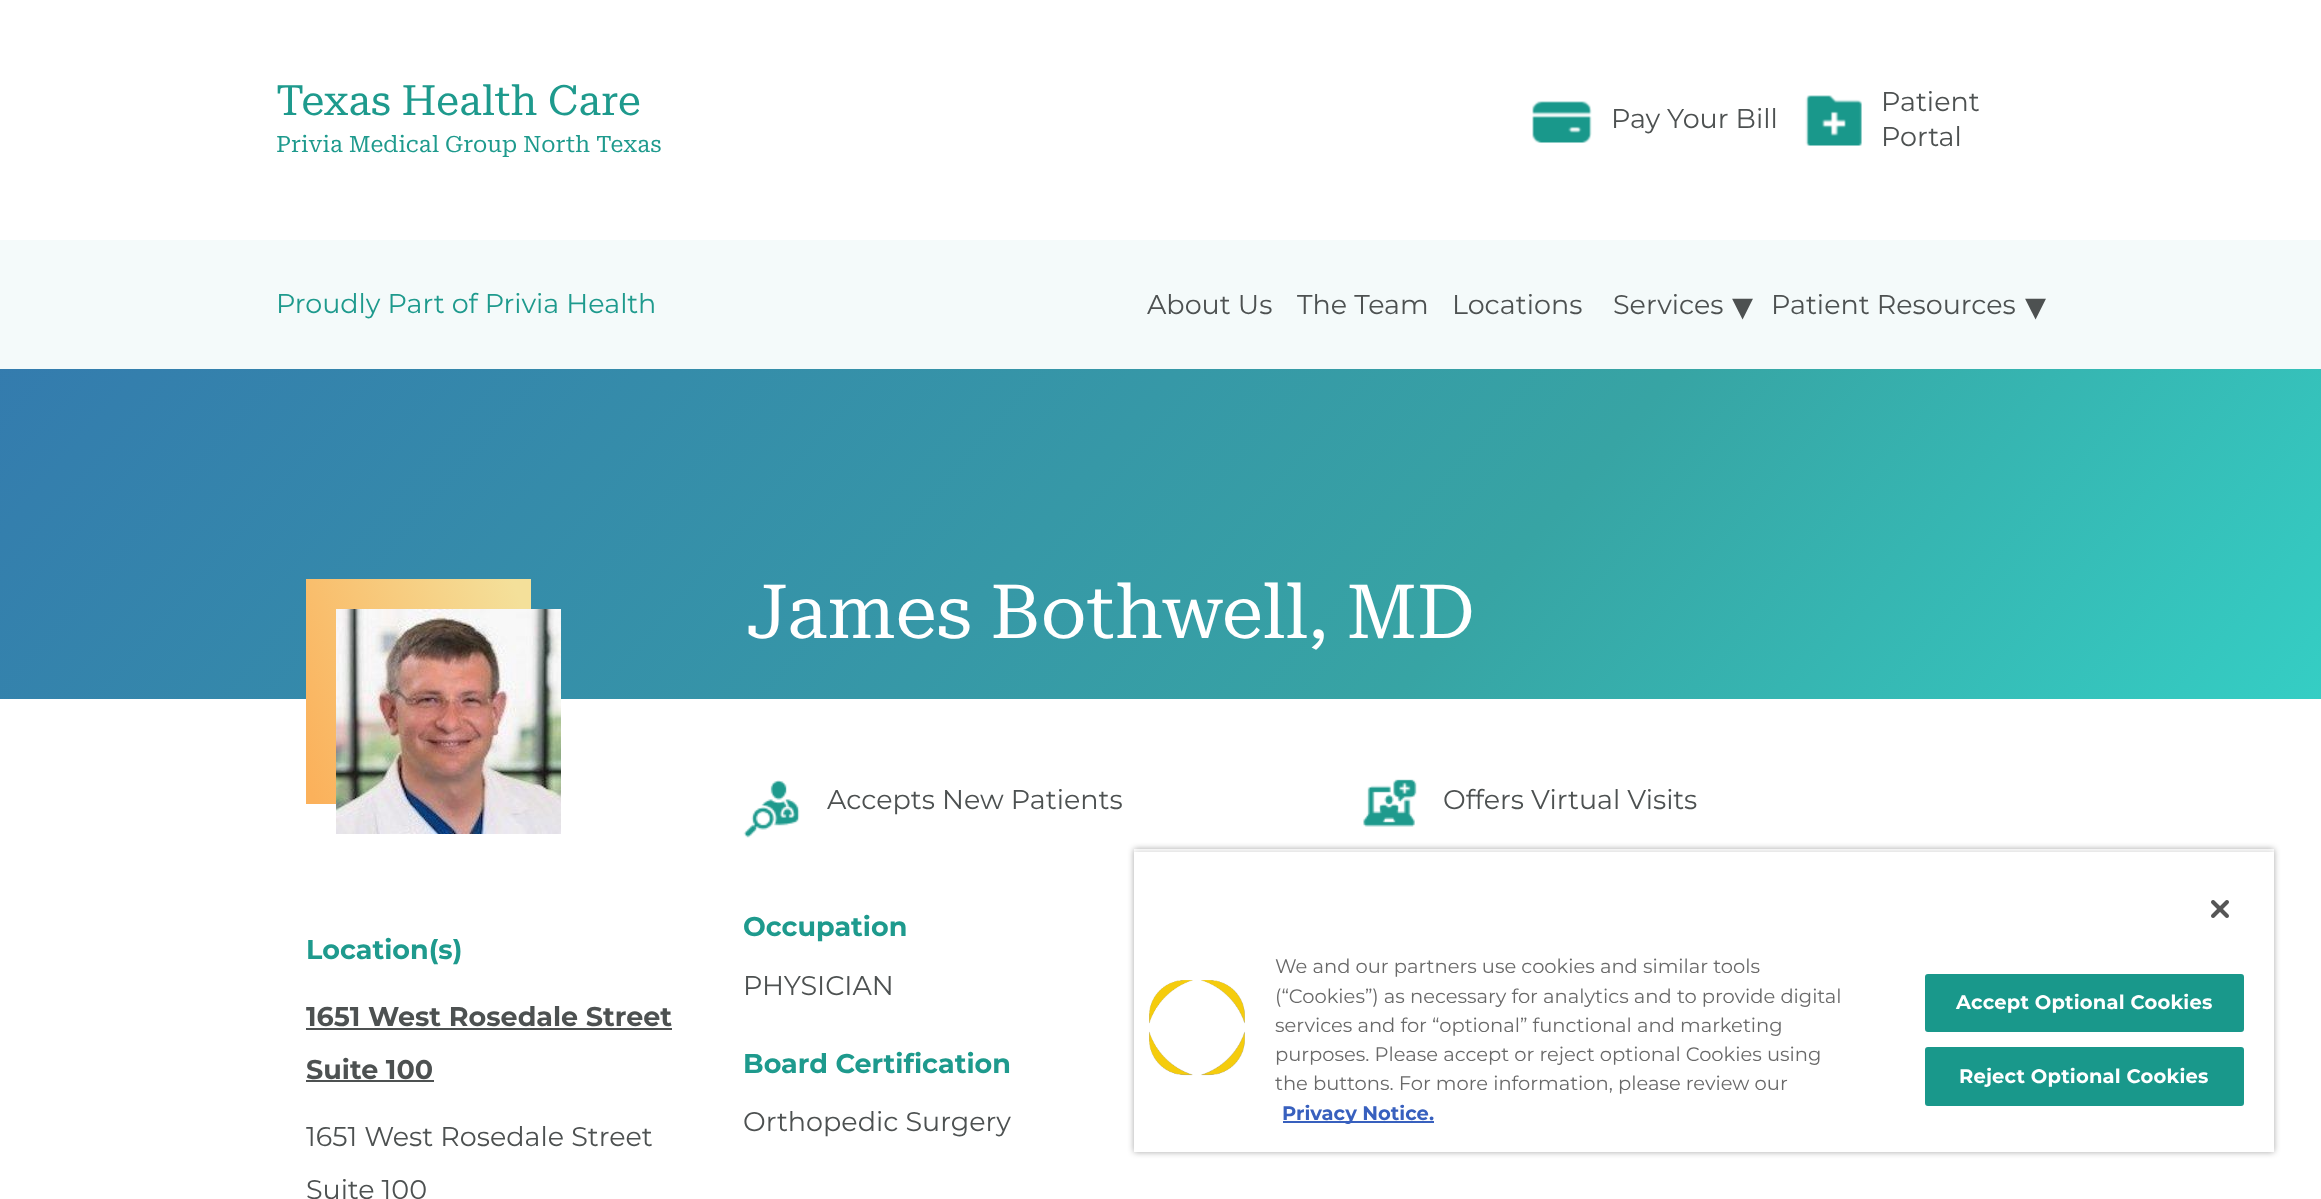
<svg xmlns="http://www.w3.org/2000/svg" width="2321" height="1199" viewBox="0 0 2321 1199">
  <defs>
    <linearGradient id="g1" gradientUnits="userSpaceOnUse" x1="213" y1="-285" x2="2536" y2="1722"><stop offset="0" stop-color="rgb(51,115,176)"/><stop offset="0.5" stop-color="rgb(55,164,164)"/><stop offset="1" stop-color="rgb(50,255,234)"/></linearGradient>
    <linearGradient id="g2" gradientUnits="userSpaceOnUse" x1="283" y1="743" x2="554" y2="640"><stop offset="0.03" stop-color="rgb(251,177,91)"/><stop offset="0.94" stop-color="rgb(244,224,154)"/></linearGradient>
    <clipPath id="clip1"><path d="M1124 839H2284V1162H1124ZM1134 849H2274V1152H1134Z" clip-rule="evenodd"/></clipPath>
    <clipPath id="clip2"><rect x="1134" y="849" width="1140" height="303"/></clipPath>
    <clipPath id="clip3"><rect x="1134" y="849" width="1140" height="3"/></clipPath>
  </defs>
  <rect width="100%" height="100%" fill="rgb(255,255,255)"/>
  <text x="276" y="115" font-family="'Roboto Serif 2'" font-size="42" fill="rgb(30,154,141)">Texas Health Care</text>
  <text x="276" y="152" font-family="'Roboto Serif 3'" font-size="22.5" fill="rgb(30,154,141)">Privia Medical Group North Texas</text>
  <image x="1532" y="101" width="60" height="42" href="pic1.png"/>
  <text x="1611" y="128" font-family="Montserrat" font-size="27" fill="rgb(77,81,81)">Pay Your Bill</text>
  <image x="1805" y="95" width="57" height="51" href="pic2.png"/>
  <g font-family="Montserrat" font-size="27" fill="rgb(77,81,81)">
    <text>
      <tspan x="1881" y="111">Patient</tspan>
      <tspan x="1881" y="146">Portal</tspan>
    </text>
  </g>
  <rect x="0" y="240" width="2321" height="129" fill="rgb(244,250,250)"/>
  <text x="276" y="313" font-family="Montserrat" font-size="27" fill="rgb(30,154,141)">Proudly Part of Privia Health</text>
  <g font-family="Montserrat" font-size="27" fill="rgb(77,81,81)">
    <text x="1147" y="314">About Us</text>
    <text x="1297" y="314">The Team</text>
    <text x="1452" y="314">Locations</text>
    <text x="1613" y="314">Services</text>
  </g>
  <text x="1732" y="320" font-family="DejaVu Sans" font-size="42" fill="rgb(77,81,81)">▾</text>
  <text x="1771" y="314" font-family="Montserrat" font-size="27" fill="rgb(77,81,81)">Patient Resources</text>
  <text x="2025" y="320" font-family="DejaVu Sans" font-size="42" fill="rgb(77,81,81)">▾</text>
  <rect x="0" y="369" width="2321" height="330" fill="url(#g1)"/>
  <text x="746" y="638" font-family="Roboto Serif" font-size="75" fill="rgb(255,255,255)">James Bothwell, MD</text>
  <rect x="306" y="579" width="225" height="225" fill="url(#g2)"/>
  <image x="336" y="609" width="225" height="225" href="pic3.png"/>
  <text x="306" y="959" font-family="Montserrat" font-size="27" font-weight="bold" fill="rgb(30,154,141)">Location(s)</text>
  <text x="306" y="1026" font-family="Montserrat" font-size="27" font-weight="bold" fill="rgb(77,81,81)">1651 West Rosedale Street</text>
  <rect x="306" y="1028" width="366" height="2" fill="rgb(77,81,81)"/>
  <text x="306" y="1079" font-family="Montserrat" font-size="27" font-weight="bold" fill="rgb(77,81,81)">Suite 100</text>
  <rect x="306" y="1080" width="128" height="2" fill="rgb(77,81,81)"/>
  <g font-family="Montserrat" font-size="27" fill="rgb(77,81,81)">
    <text>
      <tspan x="306" y="1146">1651 West Rosedale Street</tspan>
      <tspan x="306" y="1199">Suite 100</tspan>
    </text>
  </g>
  <image x="743" y="780" width="57" height="58" href="pic4.png"/>
  <text x="827" y="809" font-family="Montserrat" font-size="27" fill="rgb(77,81,81)">Accepts New Patients</text>
  <image x="1363" y="779" width="54" height="48" href="pic5.png"/>
  <text x="1443" y="809" font-family="Montserrat" font-size="27" fill="rgb(77,81,81)">Offers Virtual Visits</text>
  <text x="743" y="936" font-family="Montserrat" font-size="27" font-weight="bold" fill="rgb(30,154,141)">Occupation</text>
  <text x="743" y="995" font-family="Montserrat" font-size="27" fill="rgb(77,81,81)">PHYSICIAN</text>
  <text x="743" y="1073" font-family="Montserrat" font-size="27" font-weight="bold" fill="rgb(30,154,141)">Board Certification</text>
  <text x="743" y="1131" font-family="Montserrat" font-size="27" fill="rgb(77,81,81)">Orthopedic Surgery</text>
  <g clip-path="url(#clip1)">
    <rect x="1134" y="849" width="1140" height="303" fill="rgba(0,0,0,0.35)" filter="blur(3px)"/>
  </g>
  <g clip-path="url(#clip2)">
    <g clip-path="url(#clip3)">
      <rect x="1134" y="852" width="1140" height="300" fill="rgba(0,0,0,0.2)" filter="blur(3px)"/>
    </g>
  </g>
  <image x="2211" y="900" width="18" height="18" href="pic6.png"/>
  <image x="1149" y="980" width="96" height="96" href="pic7.png"/>
  <g font-family="Montserrat" font-size="19.5" fill="rgb(105,105,105)">
    <text>
      <tspan x="1275" y="973">We and our partners use cookies and similar tools</tspan>
      <tspan x="1275" y="1003">(“Cookies”) as necessary for analytics and to provide digital</tspan>
      <tspan x="1275" y="1032">services and for “optional” functional and marketing</tspan>
      <tspan x="1275" y="1061">purposes. Please accept or reject optional Cookies using</tspan>
      <tspan x="1275" y="1090">the buttons. For more information, please review our</tspan>
    </text>
  </g>
  <rect x="1283" y="1121" width="151" height="2" fill="rgb(56,96,190)"/>
  <text x="1282" y="1120" font-family="Montserrat" font-size="19.5" font-weight="bold" fill="rgb(56,96,190)">Privacy Notice.</text>
  <rect x="1926" y="975" width="317" height="56" rx="2" fill="rgb(25,152,139)" stroke="rgb(25,152,139)" stroke-width="2"/>
  <text x="1956" y="1009" font-family="Montserrat" font-size="19.5" font-weight="bold" letter-spacing="0.2" fill="rgb(255,255,255)">Accept Optional Cookies</text>
  <rect x="1926" y="1048" width="317" height="57" rx="2" fill="rgb(25,152,139)" stroke="rgb(25,152,139)" stroke-width="2"/>
  <text x="1959" y="1083" font-family="Montserrat" font-size="19.5" font-weight="bold" letter-spacing="0.2" fill="rgb(255,255,255)">Reject Optional Cookies</text>
</svg>
